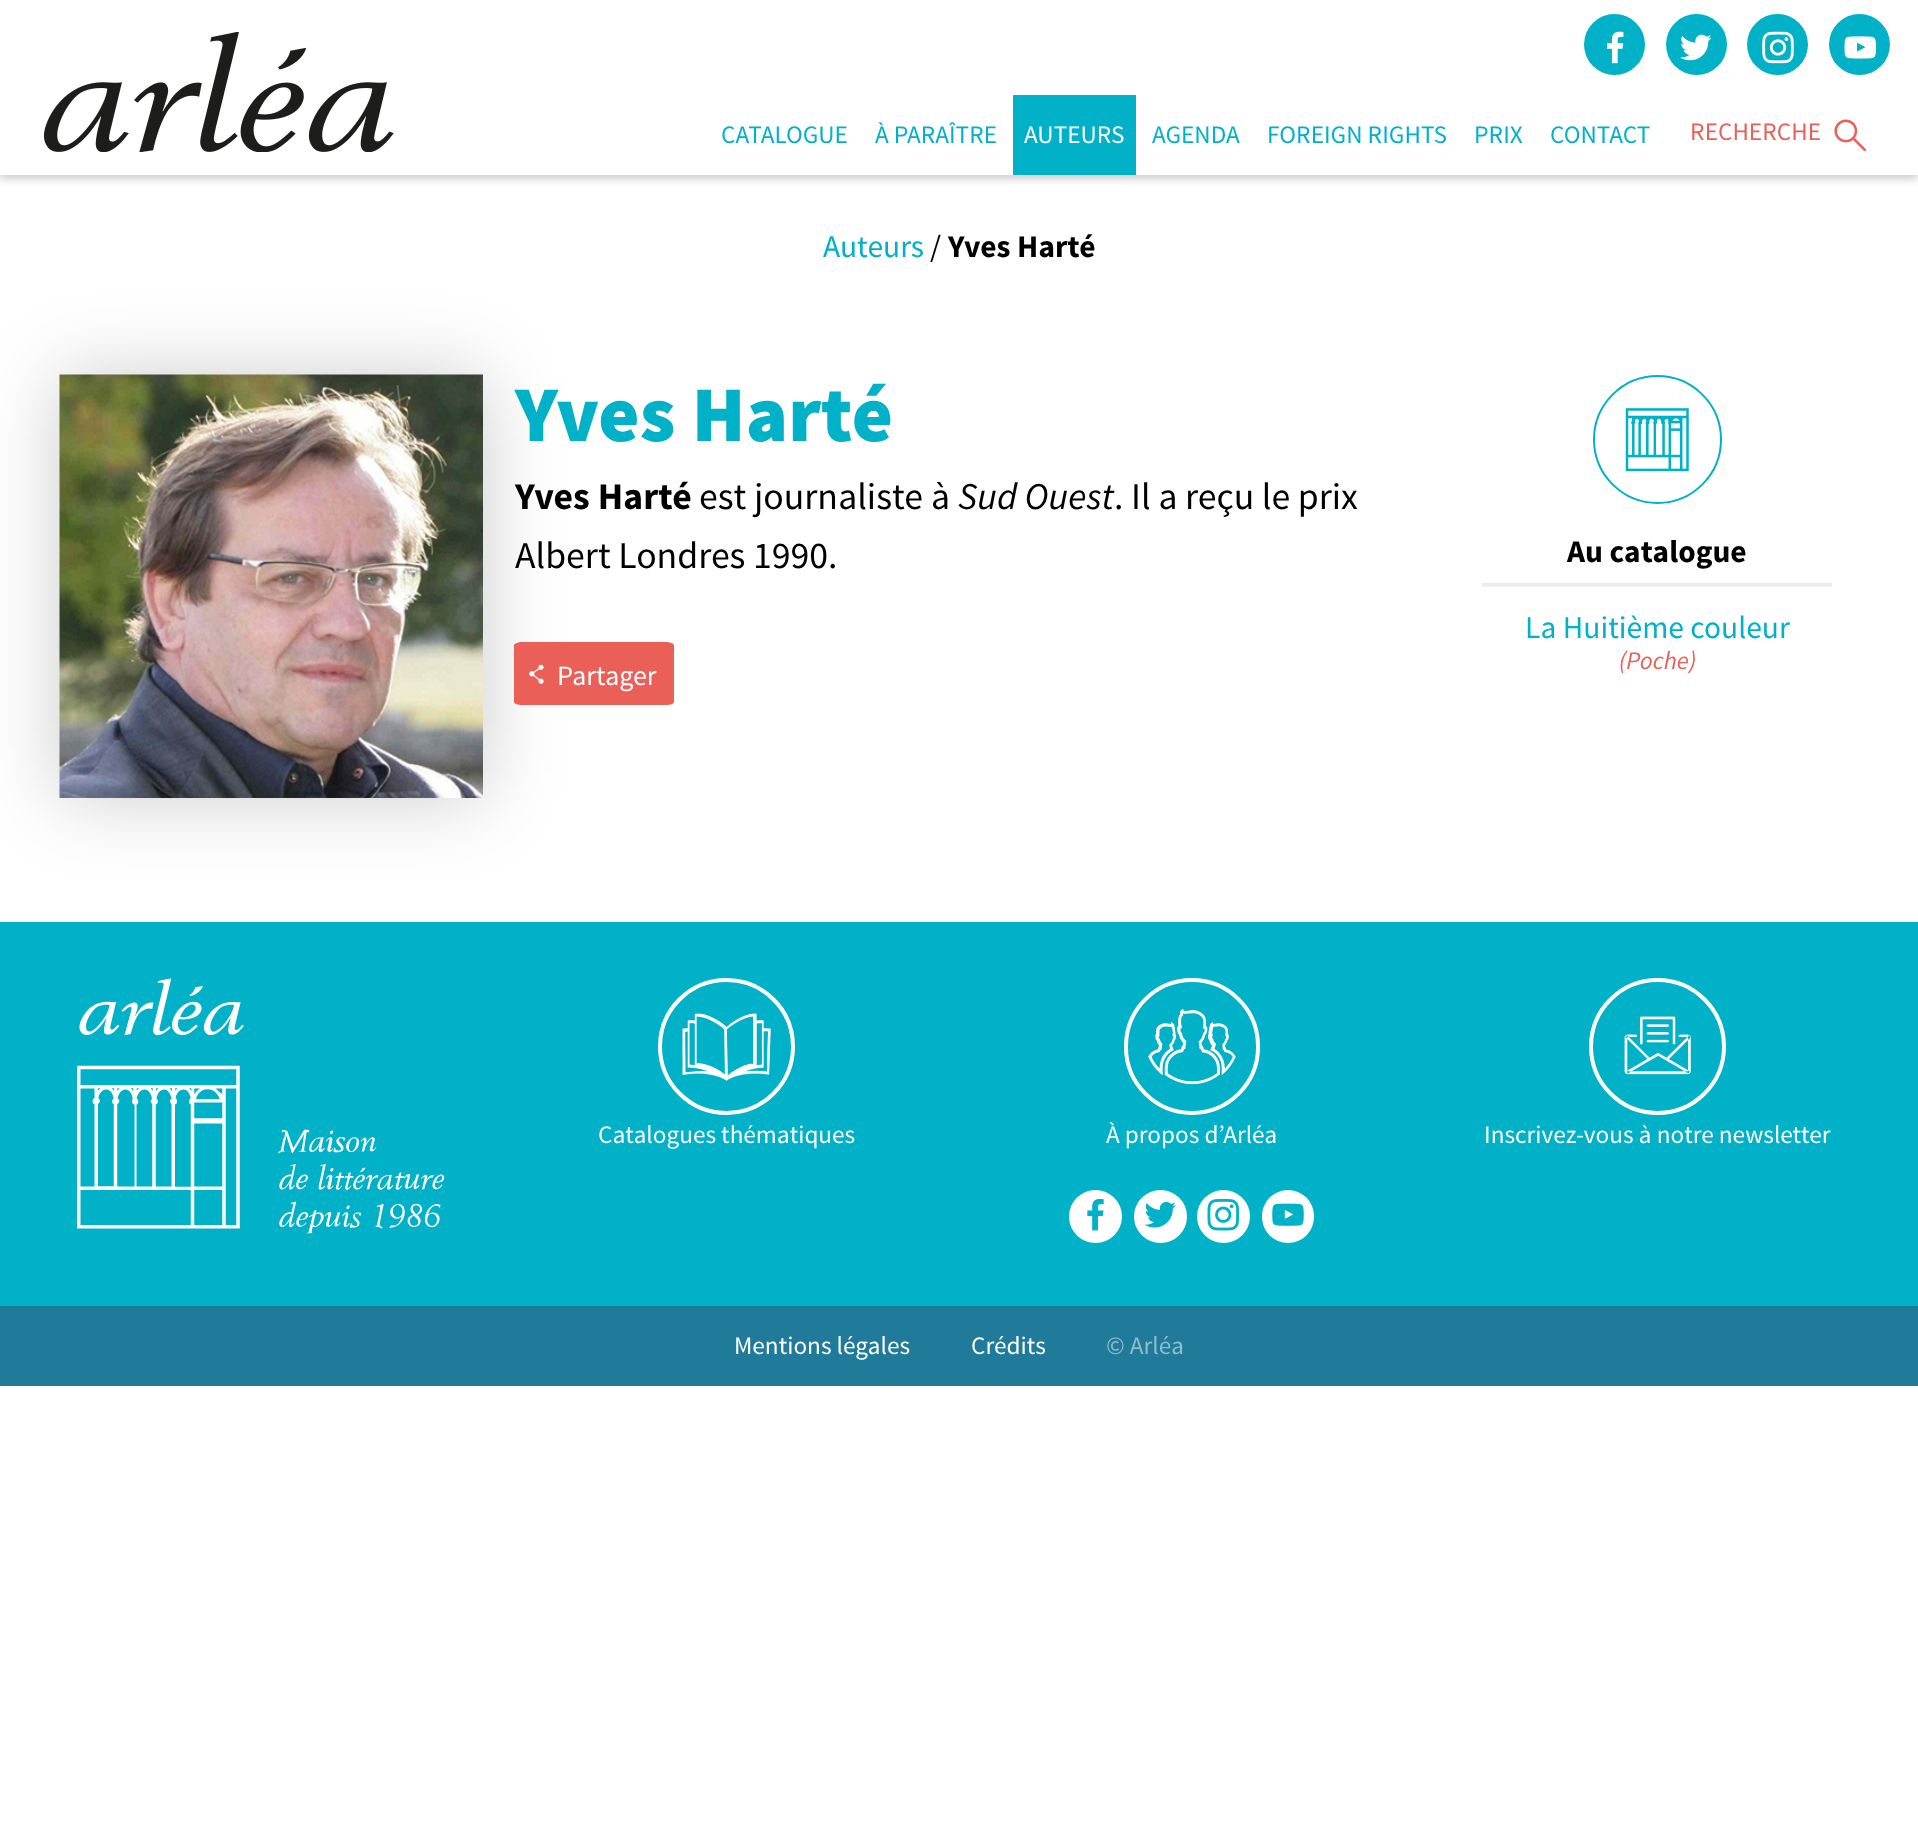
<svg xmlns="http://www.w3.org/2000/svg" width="1918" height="1835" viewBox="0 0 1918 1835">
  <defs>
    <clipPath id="clip1"><rect x="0" y="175" width="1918" height="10"/></clipPath>
  </defs>
  <rect width="100%" height="100%" fill="rgb(255,255,255)"/>
  <g clip-path="url(#clip1)">
    <rect x="0" y="4" width="1918" height="175" fill="rgba(0,0,0,0.2)" filter="blur(4.5px)"/>
  </g>
  <image x="44" y="32" width="350" height="120" href="pic1.png"/>
  <g font-family="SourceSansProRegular" font-size="25.25" fill="rgb(0,177,199)">
    <text x="721" y="143">CATALOGUE</text>
    <text x="875" y="143">À PARAÎTRE</text>
  </g>
  <rect x="1013" y="95" width="123" height="80" fill="rgb(0,177,199)"/>
  <text x="1024" y="143" font-family="SourceSansProRegular" font-size="25.25" fill="rgb(255,255,255)">AUTEURS</text>
  <g font-family="SourceSansProRegular" font-size="25.25" fill="rgb(0,177,199)">
    <text x="1152" y="143">AGENDA</text>
    <text x="1267" y="143">FOREIGN RIGHTS</text>
    <text x="1474" y="143">PRIX</text>
    <text x="1550" y="143">CONTACT</text>
  </g>
  <circle cx="1614.5" cy="44.5" r="30.5" fill="rgb(0,177,199)"/>
  <image x="1607" y="31" width="17" height="33" href="pic2.png"/>
  <circle cx="1696.5" cy="44.5" r="30.5" fill="rgb(0,177,199)"/>
  <image x="1680" y="34" width="32" height="27" href="pic3.png"/>
  <circle cx="1777.5" cy="44.5" r="30.5" fill="rgb(0,177,199)"/>
  <image x="1762" y="31" width="32" height="33" href="pic4.png"/>
  <circle cx="1859.5" cy="44.5" r="30.5" fill="rgb(0,177,199)"/>
  <image x="1844" y="36" width="32" height="23" href="pic5.png"/>
  <text x="1690" y="140" font-family="SourceSansProRegular" font-size="25.25" fill="rgb(234,96,89)">RECHERCHE</text>
  <image x="1834" y="119" width="32" height="32" href="pic6.png"/>
  <text x="823" y="257" font-family="SourceSansProRegular" font-size="31.5" fill="rgb(0,177,199)">Auteurs</text>
  <text x="930" y="257" font-family="SourceSansProRegular" font-size="31.5" fill="rgb(0,0,0)">/</text>
  <text x="948" y="257" font-family="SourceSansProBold" font-size="31.5" font-weight="bold" fill="rgb(0,0,0)">Yves Harté</text>
  <rect x="60" y="375" width="423" height="423" fill="rgba(0,0,0,0.2)" filter="blur(39.5px)"/>
  <image x="59" y="374" width="424" height="424" href="pic7.png"/>
  <text x="515" y="441" font-family="Source Sans Pro" font-size="78.75" font-weight="900" fill="rgb(0,177,199)">Yves Harté</text>
  <text x="515" y="509" font-family="SourceSansProBold" font-size="37.75" font-weight="bold" fill="rgb(0,0,0)">Yves Harté</text>
  <text x="699" y="509" font-family="SourceSansProRegular" font-size="37.75" fill="rgb(0,0,0)">est journaliste à</text>
  <text x="958" y="509" font-family="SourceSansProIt" font-size="37.75" font-style="italic" fill="rgb(0,0,0)">Sud Ouest</text>
  <g font-family="SourceSansProRegular" font-size="37.75" fill="rgb(0,0,0)">
    <text x="1114" y="509">. Il a reçu le prix</text>
    <text x="515" y="568">Albert Londres 1990.</text>
  </g>
  <path d="M522 642H666C670 642 674 644 674 645V702C674 704 670 705 666 705H522C518 705 514 704 514 702V645C514 644 518 642 522 642Z" fill="rgb(234,96,89)"/>
  <image x="529" y="664" width="15" height="20" href="pic8.png"/>
  <text x="557" y="685" font-family="SourceSansProRegular" font-size="28" fill="rgb(255,255,255)">Partager</text>
  <circle cx="1657.5" cy="439.5" r="63.5" fill="none" stroke="rgb(0,177,199)" stroke-width="2"/>
  <image x="1625" y="408" width="64" height="64" href="pic9.png"/>
  <text x="1567" y="562" font-family="SourceSansProBold" font-size="31.5" font-weight="bold" fill="rgb(0,0,0)">Au catalogue</text>
  <rect x="1482" y="583" width="350" height="4" fill="rgb(237,237,237)"/>
  <text x="1525" y="638" font-family="SourceSansProRegular" font-size="31.5" fill="rgb(0,177,199)">La Huitième couleur</text>
  <text x="1619" y="669" font-family="SourceSansProIt" font-size="25.25" font-style="italic" fill="rgb(234,96,89)">(Poche)</text>
  <rect x="0" y="922" width="1918" height="384" fill="rgb(0,177,199)"/>
  <image x="77" y="978" width="368" height="256" href="pic10.png"/>
  <circle cx="726.5" cy="1046.5" r="66.5" fill="none" stroke="rgb(255,255,255)" stroke-width="4"/>
  <image x="682" y="1013" width="89" height="68" href="pic11.png"/>
  <text x="598" y="1143" font-family="SourceSansProRegular" font-size="25.25" fill="rgb(255,255,255)">Catalogues thématiques</text>
  <rect x="1126" y="980" width="132" height="133" rx="66" fill="none" stroke="rgb(255,255,255)" stroke-width="4"/>
  <image x="1148" y="1008" width="88" height="77" href="pic12.png"/>
  <text x="1106" y="1143" font-family="SourceSansProRegular" font-size="25.25" fill="rgb(255,255,255)">À propos d’Arléa</text>
  <circle cx="1095.5" cy="1216.5" r="26.5" fill="rgb(255,255,255)"/>
  <image x="1087" y="1199" width="17" height="32" href="pic13.png"/>
  <circle cx="1160.5" cy="1216.5" r="26.5" fill="rgb(255,255,255)"/>
  <image x="1144" y="1201" width="32" height="27" href="pic14.png"/>
  <circle cx="1223.5" cy="1216.5" r="26.5" fill="rgb(255,255,255)"/>
  <image x="1207" y="1199" width="32" height="32" href="pic15.png"/>
  <rect x="1262" y="1190" width="52" height="53" rx="26" fill="rgb(255,255,255)"/>
  <image x="1272" y="1203" width="32" height="23" href="pic16.png"/>
  <circle cx="1657.5" cy="1046.5" r="66.5" fill="none" stroke="rgb(255,255,255)" stroke-width="4"/>
  <image x="1624" y="1016" width="67" height="59" href="pic17.png"/>
  <text x="1484" y="1143" font-family="SourceSansProRegular" font-size="25.25" fill="rgb(255,255,255)">Inscrivez-vous à notre newsletter</text>
  <rect x="0" y="1306" width="1918" height="80" fill="rgb(31,123,153)"/>
  <g font-family="SourceSansProRegular" font-size="25.25" fill="rgb(255,255,255)">
    <text x="734" y="1354">Mentions légales</text>
    <text x="971" y="1354">Crédits</text>
  </g>
  <text x="1106" y="1354" font-family="SourceSansProRegular" font-size="25.25" fill="rgb(143,189,204)">© Arléa</text>
</svg>
